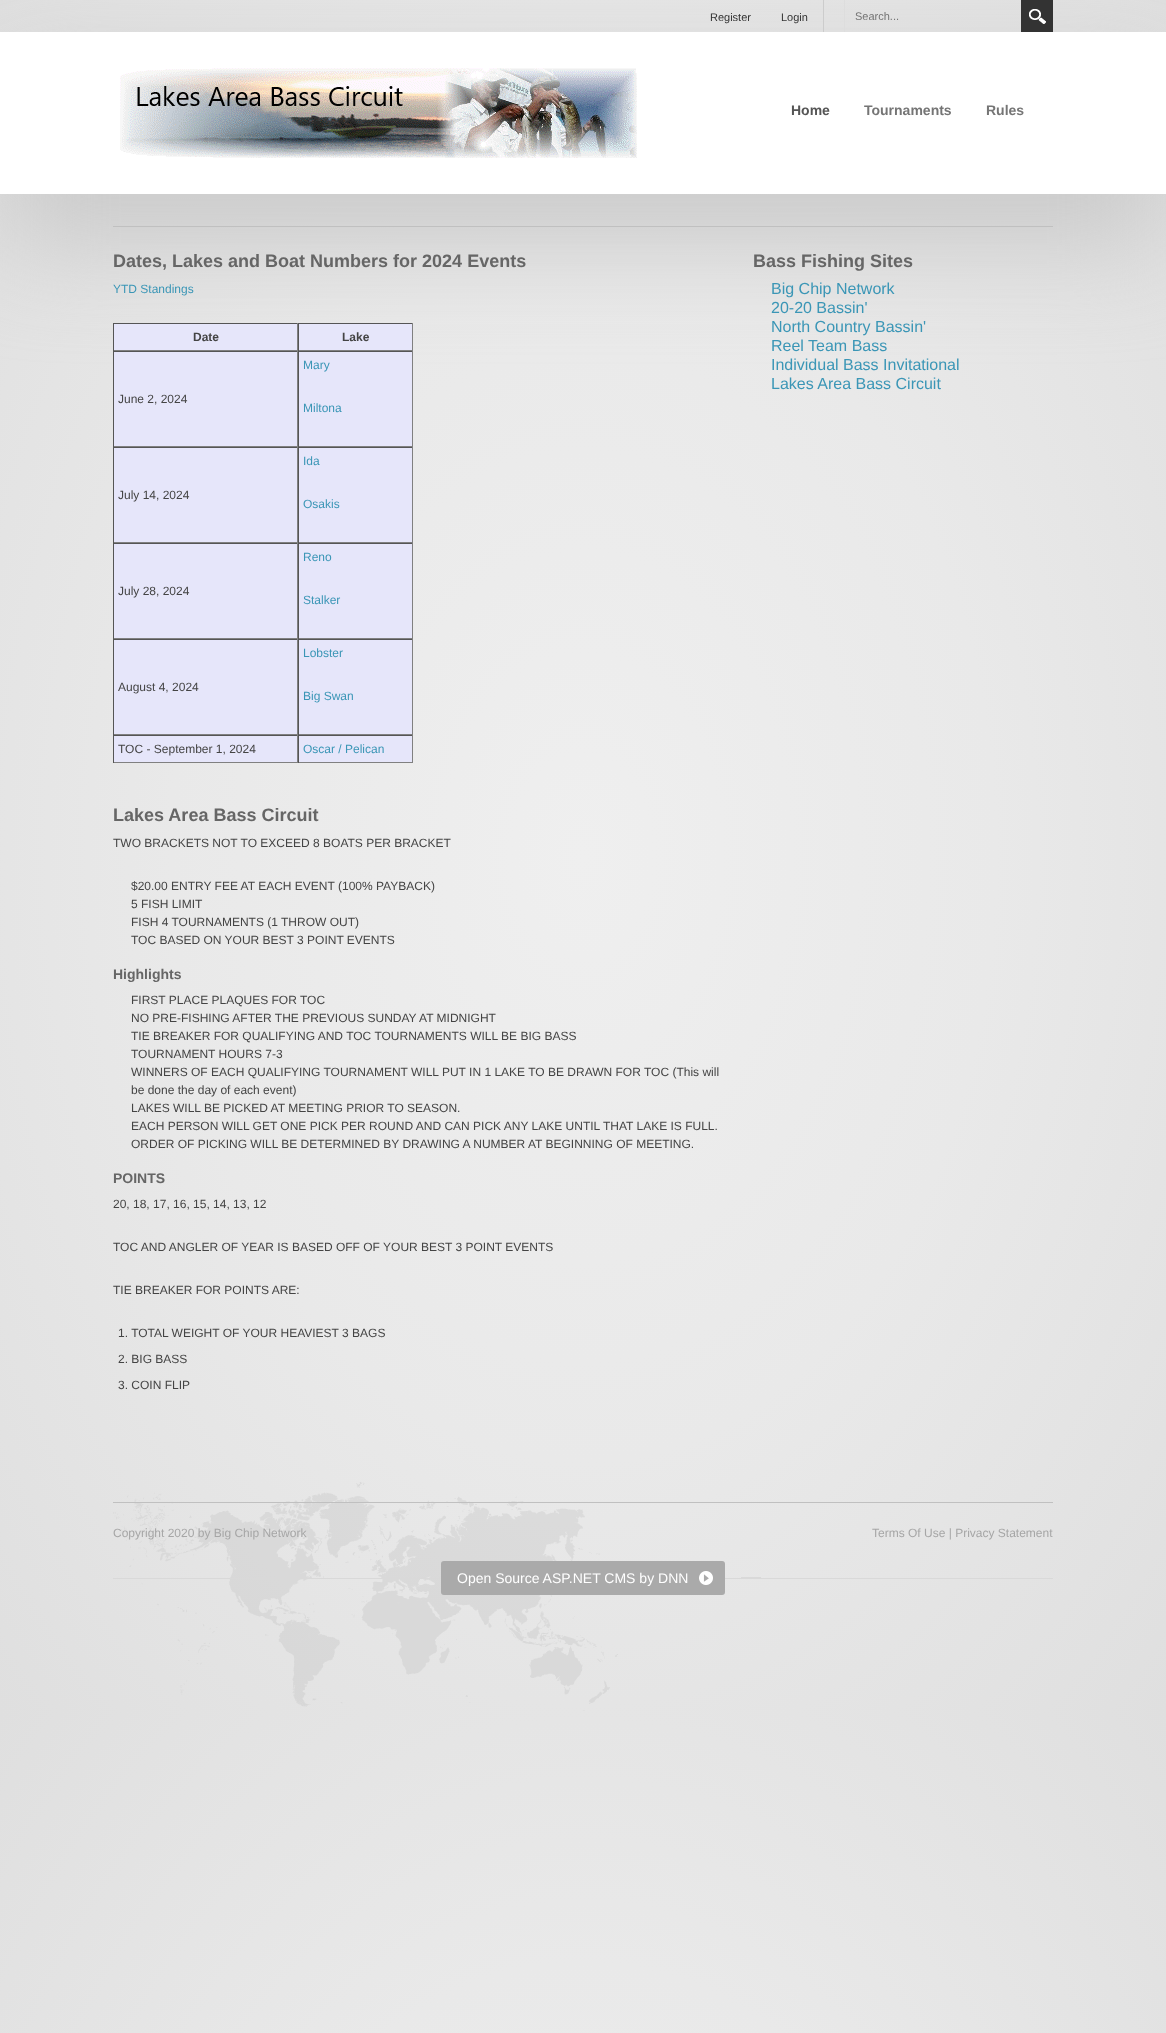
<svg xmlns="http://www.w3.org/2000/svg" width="1166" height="2033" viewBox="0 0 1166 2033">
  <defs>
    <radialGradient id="g1" gradientUnits="userSpaceOnUse" cx="0" cy="0" r="1" gradientTransform="matrix(824 0 0 1211 583 856)"><stop offset="0" stop-color="rgb(239,239,239)"/><stop offset="0.5" stop-color="rgb(233,233,233)"/><stop offset="1" stop-color="rgb(223,223,223)"/></radialGradient>
    <radialGradient id="g2" gradientUnits="userSpaceOnUse" cx="0" cy="0" r="1" gradientTransform="matrix(824 0 0 1211 583 2568)"><stop offset="0" stop-color="rgb(239,239,239)"/><stop offset="0.5" stop-color="rgb(233,233,233)"/><stop offset="1" stop-color="rgb(223,223,223)"/></radialGradient>
  </defs>
  <rect width="100%" height="100%" fill="rgb(255,255,255)"/>
  <rect x="0" y="0" width="1166" height="1712" fill="url(#g1)"/>
  <rect x="0" y="1712" width="1166" height="321" fill="url(#g2)"/>
  <rect x="1" y="82" width="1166" height="162" fill="rgb(202,202,202)" filter="blur(50px)"/>
  <text x="710" y="21" font-family="Liberation Sans" font-size="11" fill="rgb(51,51,51)">Register</text>
  <rect x="823" y="0" width="1" height="32" fill="rgb(204,204,204)"/>
  <text x="781" y="21" font-family="Liberation Sans" font-size="11" fill="rgb(51,51,51)">Login</text>
  <rect x="844" y="0" width="1" height="32" fill="rgb(221,221,221)"/>
  <text x="855" y="20" font-family="Liberation Sans" font-size="11" fill="rgb(117,117,117)">Search...</text>
  <rect x="1021" y="0" width="32" height="32" fill="rgb(51,51,51)"/>
  <image x="1029" y="9" width="17" height="15" href="pic1.png"/>
  <rect x="0" y="32" width="1166" height="162" fill="rgb(255,255,255)"/>
  <image x="120" y="68" width="517" height="90" href="pic2.png"/>
  <text x="791" y="115" font-family="Liberation Sans" font-size="14" font-weight="bold" fill="rgb(85,85,85)">Home</text>
  <g font-family="Liberation Sans" font-size="14" font-weight="bold" fill="rgb(117,117,117)">
    <text x="864" y="115">Tournaments</text>
    <text x="986" y="115">Rules</text>
  </g>
  <rect x="113" y="226" width="940" height="1" fill="rgb(192,192,192)"/>
  <text x="113" y="267" font-family="Liberation Sans" font-size="18" font-weight="bold" fill="rgb(102,102,102)">Dates, Lakes and Boat Numbers for 2024 Events</text>
  <text x="113" y="293" font-family="Liberation Sans" font-size="12" fill="rgb(59,150,182)">YTD Standings</text>
  <rect x="114" y="324" width="298" height="438" fill="rgb(230,230,250)"/>
  <rect x="113" y="323" width="300" height="1" fill="rgb(85,85,85)"/>
  <rect x="297" y="323" width="1" height="28" fill="rgb(128,128,128)"/>
  <rect x="113" y="350" width="185" height="1" fill="rgb(128,128,128)"/>
  <rect x="113" y="323" width="1" height="28" fill="rgb(85,85,85)"/>
  <text x="193" y="341" font-family="Liberation Sans" font-size="12" font-weight="bold" fill="rgb(68,68,68)">Date</text>
  <rect x="412" y="323" width="1" height="28" fill="rgb(128,128,128)"/>
  <rect x="298" y="350" width="115" height="1" fill="rgb(128,128,128)"/>
  <rect x="298" y="323" width="1" height="28" fill="rgb(85,85,85)"/>
  <text x="342" y="341" font-family="Liberation Sans" font-size="12" font-weight="bold" fill="rgb(68,68,68)">Lake</text>
  <rect x="113" y="351" width="300" height="1" fill="rgb(85,85,85)"/>
  <rect x="297" y="351" width="1" height="96" fill="rgb(128,128,128)"/>
  <rect x="113" y="446" width="185" height="1" fill="rgb(128,128,128)"/>
  <rect x="113" y="351" width="1" height="96" fill="rgb(85,85,85)"/>
  <text x="118" y="403" font-family="Liberation Sans" font-size="12" fill="rgb(68,68,68)">June 2, 2024</text>
  <rect x="412" y="351" width="1" height="96" fill="rgb(128,128,128)"/>
  <rect x="298" y="446" width="115" height="1" fill="rgb(128,128,128)"/>
  <rect x="298" y="351" width="1" height="96" fill="rgb(85,85,85)"/>
  <g font-family="Liberation Sans" font-size="12" fill="rgb(59,150,182)">
    <text x="303" y="369">Mary</text>
    <text x="303" y="412">Miltona</text>
  </g>
  <rect x="113" y="447" width="300" height="1" fill="rgb(85,85,85)"/>
  <rect x="297" y="447" width="1" height="96" fill="rgb(128,128,128)"/>
  <rect x="113" y="542" width="185" height="1" fill="rgb(128,128,128)"/>
  <rect x="113" y="447" width="1" height="96" fill="rgb(85,85,85)"/>
  <text x="118" y="499" font-family="Liberation Sans" font-size="12" fill="rgb(68,68,68)">July 14, 2024</text>
  <rect x="412" y="447" width="1" height="96" fill="rgb(128,128,128)"/>
  <rect x="298" y="542" width="115" height="1" fill="rgb(128,128,128)"/>
  <rect x="298" y="447" width="1" height="96" fill="rgb(85,85,85)"/>
  <g font-family="Liberation Sans" font-size="12" fill="rgb(59,150,182)">
    <text x="303" y="465">Ida</text>
    <text x="303" y="508">Osakis</text>
  </g>
  <rect x="113" y="543" width="300" height="1" fill="rgb(85,85,85)"/>
  <rect x="297" y="543" width="1" height="96" fill="rgb(128,128,128)"/>
  <rect x="113" y="638" width="185" height="1" fill="rgb(128,128,128)"/>
  <rect x="113" y="543" width="1" height="96" fill="rgb(85,85,85)"/>
  <text x="118" y="595" font-family="Liberation Sans" font-size="12" fill="rgb(68,68,68)">July 28, 2024</text>
  <rect x="412" y="543" width="1" height="96" fill="rgb(128,128,128)"/>
  <rect x="298" y="638" width="115" height="1" fill="rgb(128,128,128)"/>
  <rect x="298" y="543" width="1" height="96" fill="rgb(85,85,85)"/>
  <g font-family="Liberation Sans" font-size="12" fill="rgb(59,150,182)">
    <text x="303" y="561">Reno</text>
    <text x="303" y="604">Stalker</text>
  </g>
  <rect x="113" y="639" width="300" height="1" fill="rgb(85,85,85)"/>
  <rect x="297" y="639" width="1" height="96" fill="rgb(128,128,128)"/>
  <rect x="113" y="734" width="185" height="1" fill="rgb(128,128,128)"/>
  <rect x="113" y="639" width="1" height="96" fill="rgb(85,85,85)"/>
  <text x="118" y="691" font-family="Liberation Sans" font-size="12" fill="rgb(68,68,68)">August 4, 2024</text>
  <rect x="412" y="639" width="1" height="96" fill="rgb(128,128,128)"/>
  <rect x="298" y="734" width="115" height="1" fill="rgb(128,128,128)"/>
  <rect x="298" y="639" width="1" height="96" fill="rgb(85,85,85)"/>
  <g font-family="Liberation Sans" font-size="12" fill="rgb(59,150,182)">
    <text x="303" y="657">Lobster</text>
    <text x="303" y="700">Big Swan</text>
  </g>
  <rect x="113" y="735" width="300" height="1" fill="rgb(85,85,85)"/>
  <rect x="297" y="735" width="1" height="28" fill="rgb(128,128,128)"/>
  <rect x="113" y="762" width="185" height="1" fill="rgb(128,128,128)"/>
  <rect x="113" y="735" width="1" height="28" fill="rgb(85,85,85)"/>
  <text x="118" y="753" font-family="Liberation Sans" font-size="12" fill="rgb(68,68,68)">TOC - September 1, 2024</text>
  <rect x="412" y="735" width="1" height="28" fill="rgb(128,128,128)"/>
  <rect x="298" y="762" width="115" height="1" fill="rgb(128,128,128)"/>
  <rect x="298" y="735" width="1" height="28" fill="rgb(85,85,85)"/>
  <text x="303" y="753" font-family="Liberation Sans" font-size="12" fill="rgb(59,150,182)">Oscar / Pelican</text>
  <text x="113" y="821" font-family="Liberation Sans" font-size="18" font-weight="bold" fill="rgb(102,102,102)">Lakes Area Bass Circuit</text>
  <g font-family="Liberation Sans" font-size="12" fill="rgb(68,68,68)">
    <text x="113" y="847">TWO BRACKETS NOT TO EXCEED 8 BOATS PER BRACKET</text>
    <text>
      <tspan x="131" y="890">$20.00 ENTRY FEE AT EACH EVENT (100% PAYBACK)</tspan>
      <tspan x="131" y="908">5 FISH LIMIT</tspan>
      <tspan x="131" y="926">FISH 4 TOURNAMENTS (1 THROW OUT)</tspan>
      <tspan x="131" y="944">TOC BASED ON YOUR BEST 3 POINT EVENTS</tspan>
    </text>
  </g>
  <text x="113" y="979" font-family="Liberation Sans" font-size="14" font-weight="bold" fill="rgb(102,102,102)">Highlights</text>
  <g font-family="Liberation Sans" font-size="12" fill="rgb(68,68,68)">
    <text>
      <tspan x="131" y="1004">FIRST PLACE PLAQUES FOR TOC</tspan>
      <tspan x="131" y="1022">NO PRE-FISHING AFTER THE PREVIOUS SUNDAY AT MIDNIGHT</tspan>
      <tspan x="131" y="1040">TIE BREAKER FOR QUALIFYING AND TOC TOURNAMENTS WILL BE BIG BASS</tspan>
      <tspan x="131" y="1058">TOURNAMENT HOURS 7-3</tspan>
      <tspan x="131" y="1076">WINNERS OF EACH QUALIFYING TOURNAMENT WILL PUT IN 1 LAKE TO BE DRAWN FOR TOC (This will</tspan>
      <tspan x="131" y="1094">be done the day of each event)</tspan>
      <tspan x="131" y="1112">LAKES WILL BE PICKED AT MEETING PRIOR TO SEASON.</tspan>
      <tspan x="131" y="1130">EACH PERSON WILL GET ONE PICK PER ROUND AND CAN PICK ANY LAKE UNTIL THAT LAKE IS FULL.</tspan>
      <tspan x="131" y="1148">ORDER OF PICKING WILL BE DETERMINED BY DRAWING A NUMBER AT BEGINNING OF MEETING.</tspan>
    </text>
  </g>
  <text x="113" y="1183" font-family="Liberation Sans" font-size="14" font-weight="bold" fill="rgb(102,102,102)">POINTS</text>
  <g font-family="Liberation Sans" font-size="12" fill="rgb(68,68,68)">
    <text x="113" y="1208">20, 18, 17, 16, 15, 14, 13, 12</text>
    <text x="113" y="1251">TOC AND ANGLER OF YEAR IS BASED OFF OF YOUR BEST 3 POINT EVENTS</text>
    <text x="113" y="1294">TIE BREAKER FOR POINTS ARE:</text>
    <text x="118" y="1337">1. TOTAL WEIGHT OF YOUR HEAVIEST 3 BAGS</text>
    <text x="118" y="1363">2. BIG BASS</text>
    <text x="118" y="1389">3. COIN FLIP</text>
  </g>
  <text x="753" y="267" font-family="Liberation Sans" font-size="18" font-weight="bold" fill="rgb(102,102,102)">Bass Fishing Sites</text>
  <g font-family="Liberation Sans" font-size="16" fill="rgb(59,150,182)">
    <text>
      <tspan x="771" y="294">Big Chip Network</tspan>
      <tspan x="771" y="313">20-20 Bassin'</tspan>
      <tspan x="771" y="332">North Country Bassin'</tspan>
      <tspan x="771" y="351">Reel Team Bass</tspan>
      <tspan x="771" y="370">Individual Bass Invitational</tspan>
      <tspan x="771" y="389">Lakes Area Bass Circuit</tspan>
    </text>
  </g>
  <image x="113" y="1482" width="505" height="229" href="pic3.png"/>
  <rect x="113" y="1502" width="940" height="1" fill="rgb(192,192,192)"/>
  <g font-family="Liberation Sans" font-size="12" fill="rgb(166,166,166)">
    <text x="113" y="1537">Copyright 2020 by Big Chip Network</text>
    <text x="872" y="1537">Terms Of Use | Privacy Statement</text>
  </g>
  <image x="113" y="1578" width="940" height="1" href="pic4.png"/>
  <rect x="421" y="1577" width="4" height="1" fill="rgb(217,217,217)"/>
  <rect x="441" y="1561" width="284" height="34" rx="3" fill="rgb(170,170,170)"/>
  <text x="457" y="1583" font-family="Liberation Sans" font-size="14" fill="rgb(255,255,255)">Open Source ASP.NET CMS by DNN</text>
  <image x="699" y="1571" width="14" height="14" href="pic5.png"/>
  <rect x="741" y="1577" width="20" height="1" fill="rgb(217,217,217)"/>
</svg>
